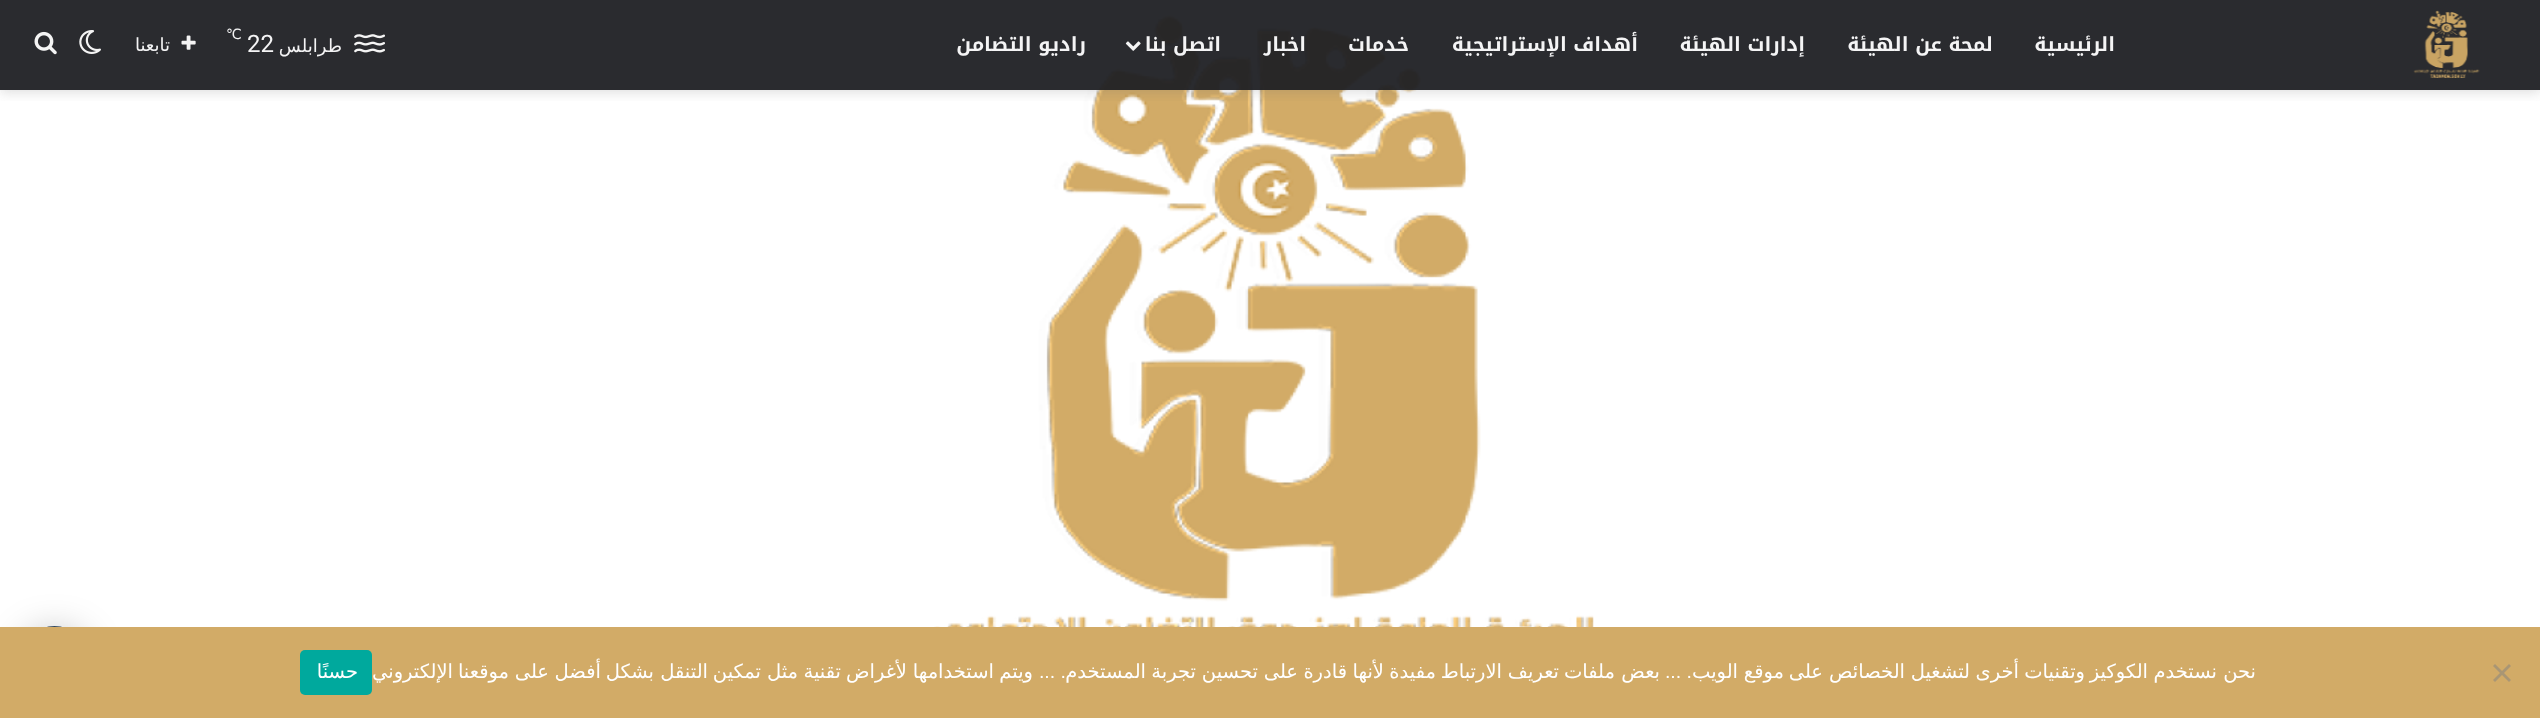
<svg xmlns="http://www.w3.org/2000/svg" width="2540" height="718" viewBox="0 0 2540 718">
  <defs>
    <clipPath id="clip1"><rect x="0" y="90" width="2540" height="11"/></clipPath>
  </defs>
  <rect width="100%" height="100%" fill="rgb(255,255,255)"/>
  <image x="934" y="14" width="660" height="613" href="pic1.png"/>
  <g clip-path="url(#clip1)">
    <rect x="0" y="3" width="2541" height="90" fill="rgba(99,99,99,0.2)" filter="blur(6px)"/>
  </g>
  <rect x="0" y="0" width="2540" height="90" fill="rgba(31,32,36,0.95)"/>
  <image x="2413" y="10" width="67" height="68" href="pic2.png"/>
  <g font-family="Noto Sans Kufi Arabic" font-size="19.5" font-weight="bold" direction="rtl" fill="rgb(244,244,245)">
    <text x="2115" y="51">الرئيسية</text>
    <text x="1993" y="51">لمحة عن الهيئة</text>
    <text x="1805" y="51">إدارات الهيئة</text>
    <text x="1638" y="51">أهداف الإستراتيجية</text>
    <text x="1409" y="51">خدمات</text>
    <text x="1306" y="51">اخبار</text>
    <text x="1221" y="51">اتصل بنا</text>
  </g>
  <image x="1125" y="41" width="16" height="10" href="pic3.png"/>
  <text x="1086" y="51" font-family="Noto Sans Kufi Arabic" font-size="19.5" font-weight="bold" direction="rtl" fill="rgb(244,244,245)">راديو التضامن</text>
  <image x="354" y="34" width="31" height="19" href="pic4.png"/>
  <text x="342" y="52" font-family="DejaVu Sans" font-size="18" direction="rtl" fill="rgb(244,244,245)">طرابلس</text>
  <text x="247" y="52" font-family="Roboto" font-size="24" fill="rgb(244,244,245)">22</text>
  <text x="226" y="39" font-family="DejaVu Sans" font-size="14" fill="rgb(244,244,245)">℃</text>
  <image x="181" y="35" width="15" height="15" href="pic5.png"/>
  <text x="170" y="51" font-family="DejaVu Sans" font-size="18" direction="rtl" fill="rgb(244,244,245)">تابعنا</text>
  <image x="79" y="30" width="22" height="24" href="pic6.png"/>
  <image x="34" y="31" width="23" height="24" href="pic7.png"/>
  <rect x="23" y="633" width="63" height="63" rx="31.5" fill="rgba(0,0,0,0.3)" filter="blur(19px)"/>
  <circle cx="54.5" cy="657.5" r="31.5" fill="rgb(52,73,94)"/>
  <rect x="0" y="627" width="2540" height="91" fill="rgb(210,171,103)"/>
  <path d="M2509 664L2511 666L2495 682L2493 680Z" fill="rgb(169,150,116)"/>
  <path d="M2493 666L2495 664L2511 680L2509 682Z" fill="rgb(169,150,116)"/>
  <g font-family="DejaVu Sans" font-size="19.5" direction="rtl" fill="rgb(255,255,255)">
    <text x="2256" y="678">نحن</text>
    <text x="2217" y="678">نستخدم</text>
    <text x="2148" y="678">الكوكيز</text>
    <text x="2085" y="678">وتقنيات</text>
    <text x="2019" y="678">أخرى</text>
    <text x="1970" y="678">لتشغيل</text>
    <text x="1905" y="678">الخصائص</text>
    <text x="1823" y="678">على</text>
    <text x="1784" y="678">موقع</text>
    <text x="1738" y="678">الويب</text>
  </g>
  <text x="1692" y="678" font-family="Liberation Sans" font-size="19.5" direction="rtl" fill="rgb(255,255,255)">. ...</text>
  <g font-family="DejaVu Sans" font-size="19.5" direction="rtl" fill="rgb(255,255,255)">
    <text x="1660" y="678">بعض</text>
    <text x="1615" y="678">ملفات</text>
    <text x="1559" y="678">تعريف</text>
    <text x="1502" y="678">الارتباط</text>
    <text x="1436" y="678">مفيدة</text>
    <text x="1384" y="678">لأنها</text>
    <text x="1347" y="678">قادرة</text>
    <text x="1298" y="678">على</text>
    <text x="1258" y="678">تحسين</text>
    <text x="1196" y="678">تجربة</text>
    <text x="1146" y="678">المستخدم</text>
  </g>
  <text x="1066" y="678" font-family="Liberation Sans" font-size="19.5" direction="rtl" fill="rgb(255,255,255)">. ...</text>
  <g font-family="DejaVu Sans" font-size="19.5" direction="rtl" fill="rgb(255,255,255)">
    <text x="1033" y="678">ويتم</text>
    <text x="994" y="678">استخدامها</text>
    <text x="907" y="678">لأغراض</text>
    <text x="841" y="678">تقنية</text>
    <text x="798" y="678">مثل</text>
    <text x="761" y="678">تمكين</text>
    <text x="708" y="678">التنقل</text>
    <text x="654" y="678">بشكل</text>
    <text x="601" y="678">أفضل</text>
    <text x="549" y="678">على</text>
    <text x="509" y="678">موقعنا</text>
    <text x="453" y="678">الإلكتروني</text>
  </g>
  <rect x="300" y="650" width="72" height="45" rx="5" fill="rgb(0,169,157)"/>
  <text x="358" y="678" font-family="DejaVu Sans" font-size="19.5" letter-spacing="0.5" direction="rtl" fill="rgb(255,255,255)">حسنًا</text>
</svg>
